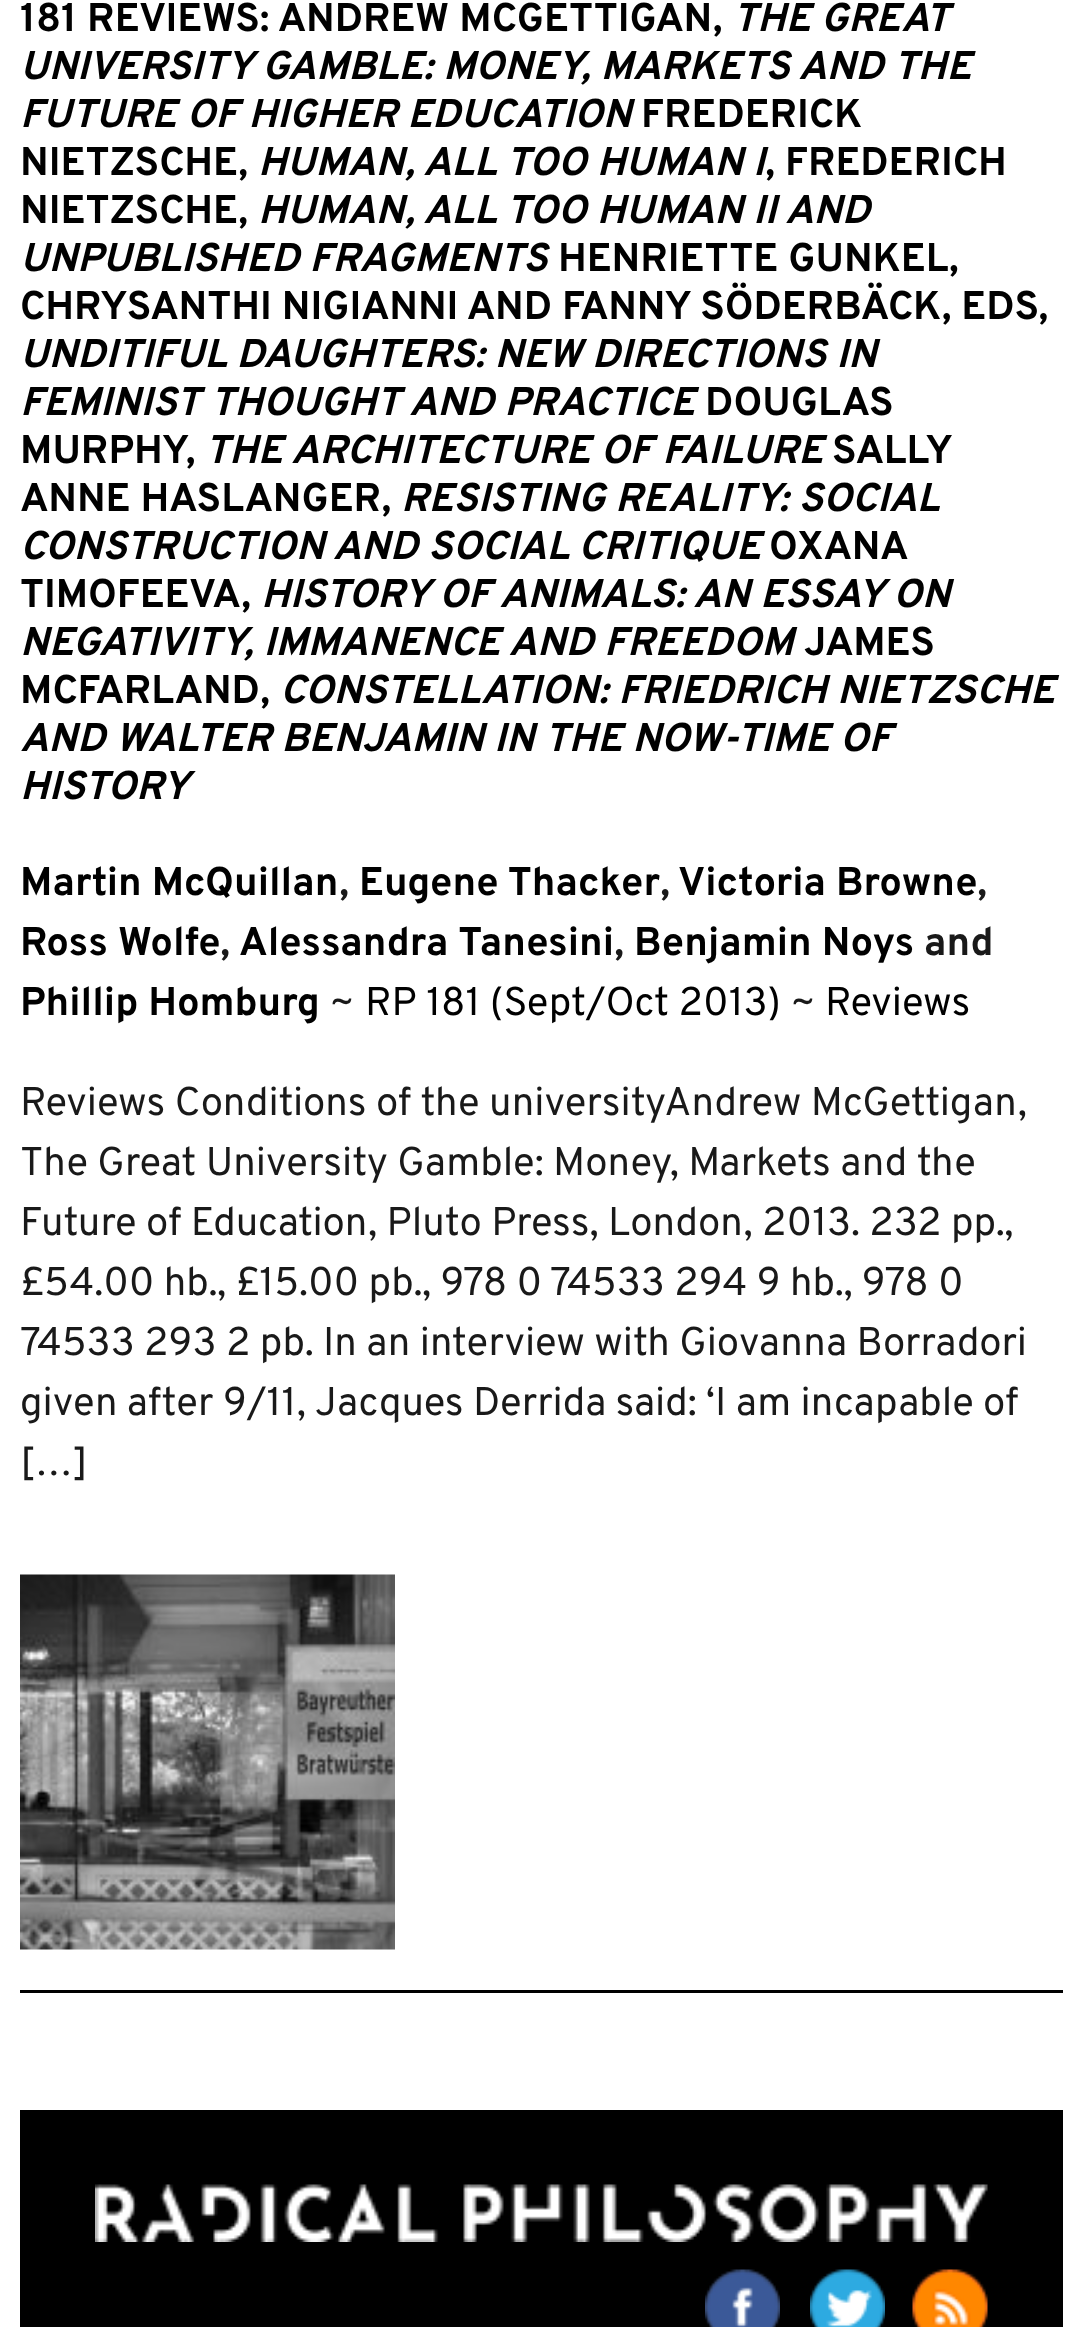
<svg xmlns="http://www.w3.org/2000/svg" width="1082" height="2327" viewBox="0 0 1082 2327">
  <rect width="100%" height="100%" fill="rgb(255,255,255)"/>
  <rect x="20" y="1990" width="1043" height="3" fill="rgb(0,0,0)"/>
  <text x="20" y="31" font-family="Overpass" font-size="40" font-weight="bold" fill="rgb(0,0,0)">181 REVIEWS: ANDREW MCGETTIGAN,</text>
  <g font-family="Overpass" font-size="40" font-weight="bold" font-style="italic" fill="rgb(0,0,0)">
    <text x="733" y="31">THE GREAT</text>
    <text>
      <tspan x="20" y="79">UNIVERSITY GAMBLE: MONEY, MARKETS AND THE</tspan>
      <tspan x="20" y="127">FUTURE OF HIGHER EDUCATION</tspan>
    </text>
  </g>
  <g font-family="Overpass" font-size="40" font-weight="bold" fill="rgb(0,0,0)">
    <text x="641" y="127">FREDERICK</text>
    <text x="20" y="175">NIETZSCHE,</text>
  </g>
  <text x="258" y="175" font-family="Overpass" font-size="40" font-weight="bold" font-style="italic" fill="rgb(0,0,0)">HUMAN, ALL TOO HUMAN I</text>
  <g font-family="Overpass" font-size="40" font-weight="bold" fill="rgb(0,0,0)">
    <text x="765" y="175">, FREDERICH</text>
    <text x="20" y="223">NIETZSCHE,</text>
  </g>
  <g font-family="Overpass" font-size="40" font-weight="bold" font-style="italic" fill="rgb(0,0,0)">
    <text x="258" y="223">HUMAN, ALL TOO HUMAN II AND</text>
    <text x="20" y="271">UNPUBLISHED FRAGMENTS</text>
  </g>
  <g font-family="Overpass" font-size="40" font-weight="bold" fill="rgb(0,0,0)">
    <text x="558" y="271">HENRIETTE GUNKEL,</text>
    <text x="20" y="319">CHRYSANTHI NIGIANNI AND FANNY SÖDERBÄCK, EDS,</text>
  </g>
  <g font-family="Overpass" font-size="40" font-weight="bold" font-style="italic" fill="rgb(0,0,0)">
    <text>
      <tspan x="20" y="367">UNDITIFUL DAUGHTERS: NEW DIRECTIONS IN</tspan>
      <tspan x="20" y="415">FEMINIST THOUGHT AND PRACTICE</tspan>
    </text>
  </g>
  <g font-family="Overpass" font-size="40" font-weight="bold" fill="rgb(0,0,0)">
    <text x="705" y="415">DOUGLAS</text>
    <text x="20" y="463">MURPHY,</text>
  </g>
  <text x="205" y="463" font-family="Overpass" font-size="40" font-weight="bold" font-style="italic" fill="rgb(0,0,0)">THE ARCHITECTURE OF FAILURE</text>
  <g font-family="Overpass" font-size="40" font-weight="bold" fill="rgb(0,0,0)">
    <text x="832" y="463">SALLY</text>
    <text x="20" y="511">ANNE HASLANGER,</text>
  </g>
  <g font-family="Overpass" font-size="40" font-weight="bold" font-style="italic" fill="rgb(0,0,0)">
    <text x="401" y="511">RESISTING REALITY: SOCIAL</text>
    <text x="20" y="559">CONSTRUCTION AND SOCIAL CRITIQUE</text>
  </g>
  <g font-family="Overpass" font-size="40" font-weight="bold" fill="rgb(0,0,0)">
    <text x="769" y="559">OXANA</text>
    <text x="20" y="607">TIMOFEEVA,</text>
  </g>
  <g font-family="Overpass" font-size="40" font-weight="bold" font-style="italic" fill="rgb(0,0,0)">
    <text x="261" y="607">HISTORY OF ANIMALS: AN ESSAY ON</text>
    <text x="20" y="655">NEGATIVITY, IMMANENCE AND FREEDOM</text>
  </g>
  <g font-family="Overpass" font-size="40" font-weight="bold" fill="rgb(0,0,0)">
    <text x="804" y="655">JAMES</text>
    <text x="20" y="703">MCFARLAND,</text>
  </g>
  <g font-family="Overpass" font-size="40" font-weight="bold" font-style="italic" fill="rgb(0,0,0)">
    <text x="280" y="703">CONSTELLATION: FRIEDRICH NIETZSCHE</text>
    <text>
      <tspan x="20" y="751">AND WALTER BENJAMIN IN THE NOW-TIME OF</tspan>
      <tspan x="20" y="799">HISTORY</tspan>
    </text>
  </g>
  <text x="20" y="895" font-family="Overpass" font-size="40" font-weight="bold" fill="rgb(0,0,0)">Martin McQuillan</text>
  <text x="339" y="895" font-family="Overpass" font-size="40" font-weight="bold" fill="rgb(25,25,25)">,</text>
  <text x="359" y="895" word-spacing="-1" font-family="Overpass" font-size="40" font-weight="bold" fill="rgb(0,0,0)">Eugene Thacker</text>
  <text x="660" y="895" font-family="Overpass" font-size="40" font-weight="bold" fill="rgb(25,25,25)">,</text>
  <text x="678" y="895" font-family="Overpass" font-size="40" font-weight="bold" fill="rgb(0,0,0)">Victoria Browne</text>
  <text x="977" y="895" font-family="Overpass" font-size="40" font-weight="bold" fill="rgb(25,25,25)">,</text>
  <text x="20" y="955" font-family="Overpass" font-size="40" font-weight="bold" fill="rgb(0,0,0)">Ross Wolfe</text>
  <text x="220" y="955" font-family="Overpass" font-size="40" font-weight="bold" fill="rgb(25,25,25)">,</text>
  <text x="239" y="955" font-family="Overpass" font-size="40" font-weight="bold" fill="rgb(0,0,0)">Alessandra Tanesini</text>
  <text x="614" y="955" font-family="Overpass" font-size="40" font-weight="bold" fill="rgb(25,25,25)">,</text>
  <text x="634" y="955" font-family="Overpass" font-size="40" font-weight="bold" fill="rgb(0,0,0)">Benjamin Noys</text>
  <text x="924" y="955" font-family="Overpass" font-size="40" font-weight="bold" fill="rgb(25,25,25)">and</text>
  <text x="20" y="1015" font-family="Overpass" font-size="40" font-weight="bold" fill="rgb(0,0,0)">Phillip Homburg</text>
  <text x="329" y="1015" font-family="Overpass" font-size="40" fill="rgb(25,25,25)">~</text>
  <text x="365" y="1015" font-family="Overpass" font-size="40" fill="rgb(0,0,0)">RP 181 (Sept/Oct 2013)</text>
  <text x="790" y="1015" font-family="Overpass" font-size="40" fill="rgb(25,25,25)">~</text>
  <text x="825" y="1015" font-family="Overpass" font-size="40" fill="rgb(0,0,0)">Reviews</text>
  <g font-family="Overpass" font-size="40" fill="rgb(25,25,25)">
    <text>
      <tspan x="20" y="1115">Reviews Conditions of the universityAndrew McGettigan,</tspan>
      <tspan x="20" y="1175">The Great University Gamble: Money, Markets and the</tspan>
      <tspan x="20" y="1235">Future of Education, Pluto Press, London, 2013. 232 pp.,</tspan>
      <tspan x="20" y="1295">£54.00 hb., £15.00 pb., 978 0 74533 294 9 hb., 978 0</tspan>
      <tspan x="20" y="1355">74533 293 2 pb. In an interview with Giovanna Borradori</tspan>
      <tspan x="20" y="1415">given after 9/11, Jacques Derrida said: ‘I am incapable of</tspan>
      <tspan x="20" y="1475">[…]</tspan>
    </text>
  </g>
  <image x="20" y="1574" width="375" height="376" href="pic1.png"/>
  <rect x="20" y="2110" width="1043" height="217" fill="rgb(0,0,0)"/>
  <image x="95" y="2184" width="893" height="58" href="pic2.png"/>
  <image x="705" y="2269" width="75" height="58" href="pic3.png"/>
  <image x="810" y="2269" width="75" height="58" href="pic4.png"/>
  <image x="912" y="2269" width="76" height="58" href="pic5.png"/>
</svg>
